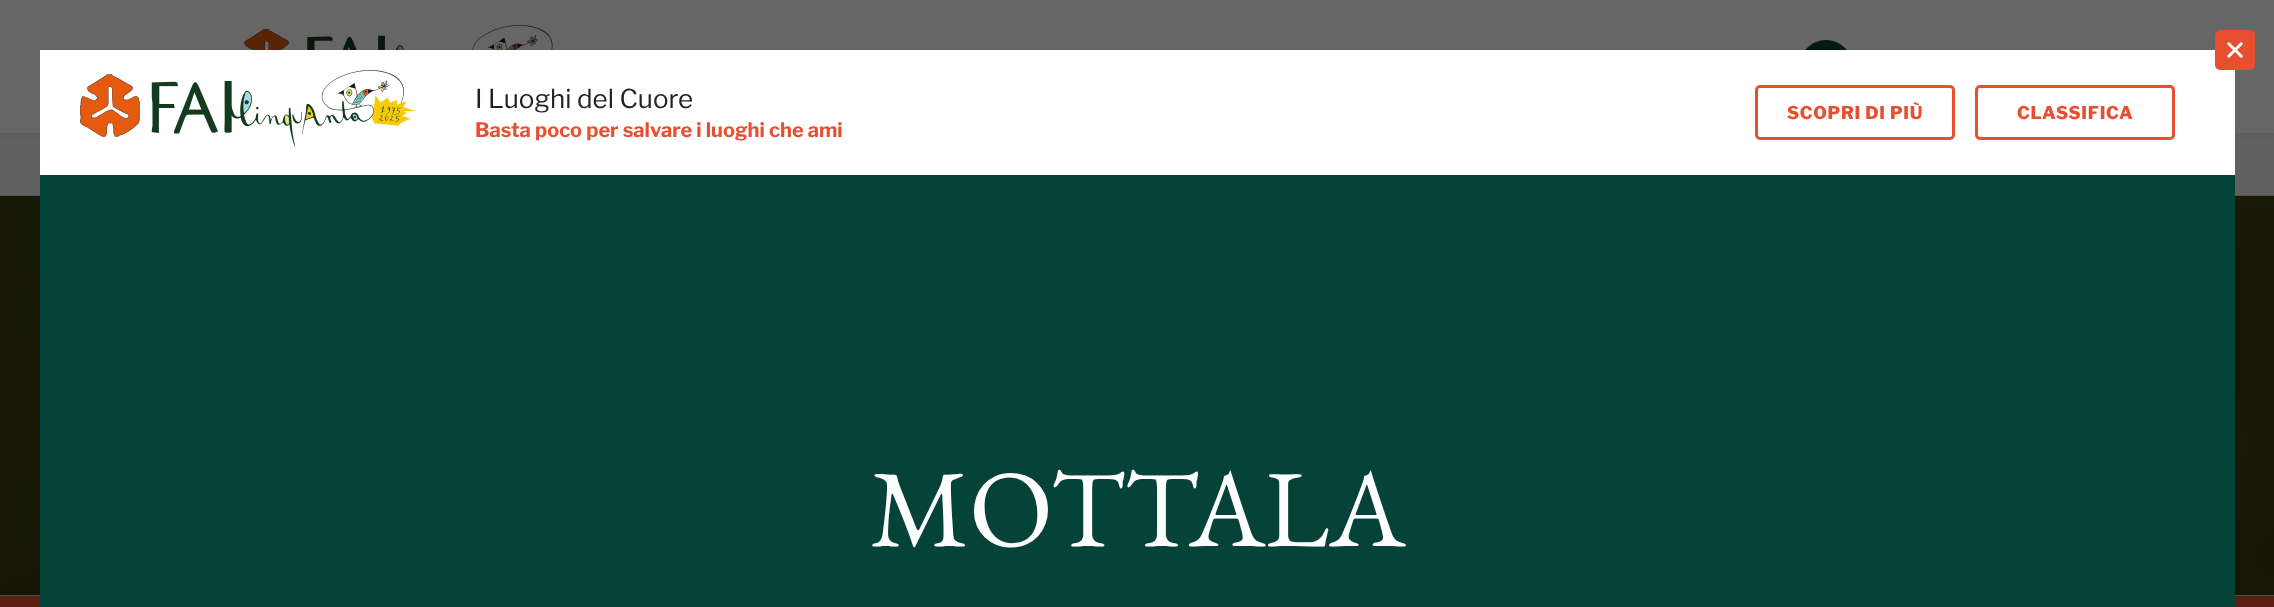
<svg xmlns="http://www.w3.org/2000/svg" width="2274" height="607" viewBox="0 0 2274 607">
  <rect width="100%" height="100%" fill="rgb(255,255,255)"/>
  <rect x="0" y="133" width="2274" height="63" fill="rgb(97,97,97)"/>
  <rect x="0" y="0" width="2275" height="133" fill="rgba(0,0,0,0.1)" filter="blur(4px)"/>
  <rect x="0" y="0" width="2274" height="133" fill="rgb(102,102,102)"/>
  <image x="244" y="25" width="309" height="25" href="pic1.png"/>
  <circle cx="1826" cy="67" r="27" fill="rgb(2,26,22)"/>
  <rect x="40" y="50" width="2195" height="125" fill="rgb(255,255,255)"/>
  <rect x="2215" y="30" width="40" height="40" rx="5" fill="rgb(231,79,48)"/>
  <image x="2227" y="42" width="16" height="16" href="pic2.png"/>
  <image x="80" y="70" width="336" height="77" href="pic3.png"/>
  <text x="475" y="108" font-family="Libre Franklin" font-size="26" fill="rgb(34,34,34)">I Luoghi del Cuore</text>
  <text x="475" y="137" font-family="Libre Franklin" font-size="20" font-weight="bold" fill="rgb(231,79,48)">Basta poco per salvare i luoghi che ami</text>
  <rect x="1756.5" y="86.5" width="197" height="52" rx="3.5" fill="none" stroke="rgb(231,79,48)" stroke-width="3"/>
  <text x="1787" y="119" font-family="Libre Franklin" font-size="17.5" font-weight="800" letter-spacing="0.75" fill="rgb(231,79,48)">SCOPRI DI PIÙ</text>
  <rect x="1976.5" y="86.5" width="197" height="52" rx="3.5" fill="none" stroke="rgb(231,79,48)" stroke-width="3"/>
  <text x="2017" y="119" font-family="Libre Franklin" font-size="17.5" font-weight="800" letter-spacing="0.75" fill="rgb(231,79,48)">CLASSIFICA</text>
  <image x="0" y="195" width="2274" height="401" href="pic4.png"/>
  <rect x="0" y="596" width="2274" height="11" fill="rgb(92,32,19)"/>
  <rect x="40" y="175" width="2195" height="432" fill="rgb(5,66,56)"/>
  <text x="870" y="546" font-family="EB Garamond" font-size="110" fill="rgb(255,255,255)">MOTTALA</text>
</svg>
